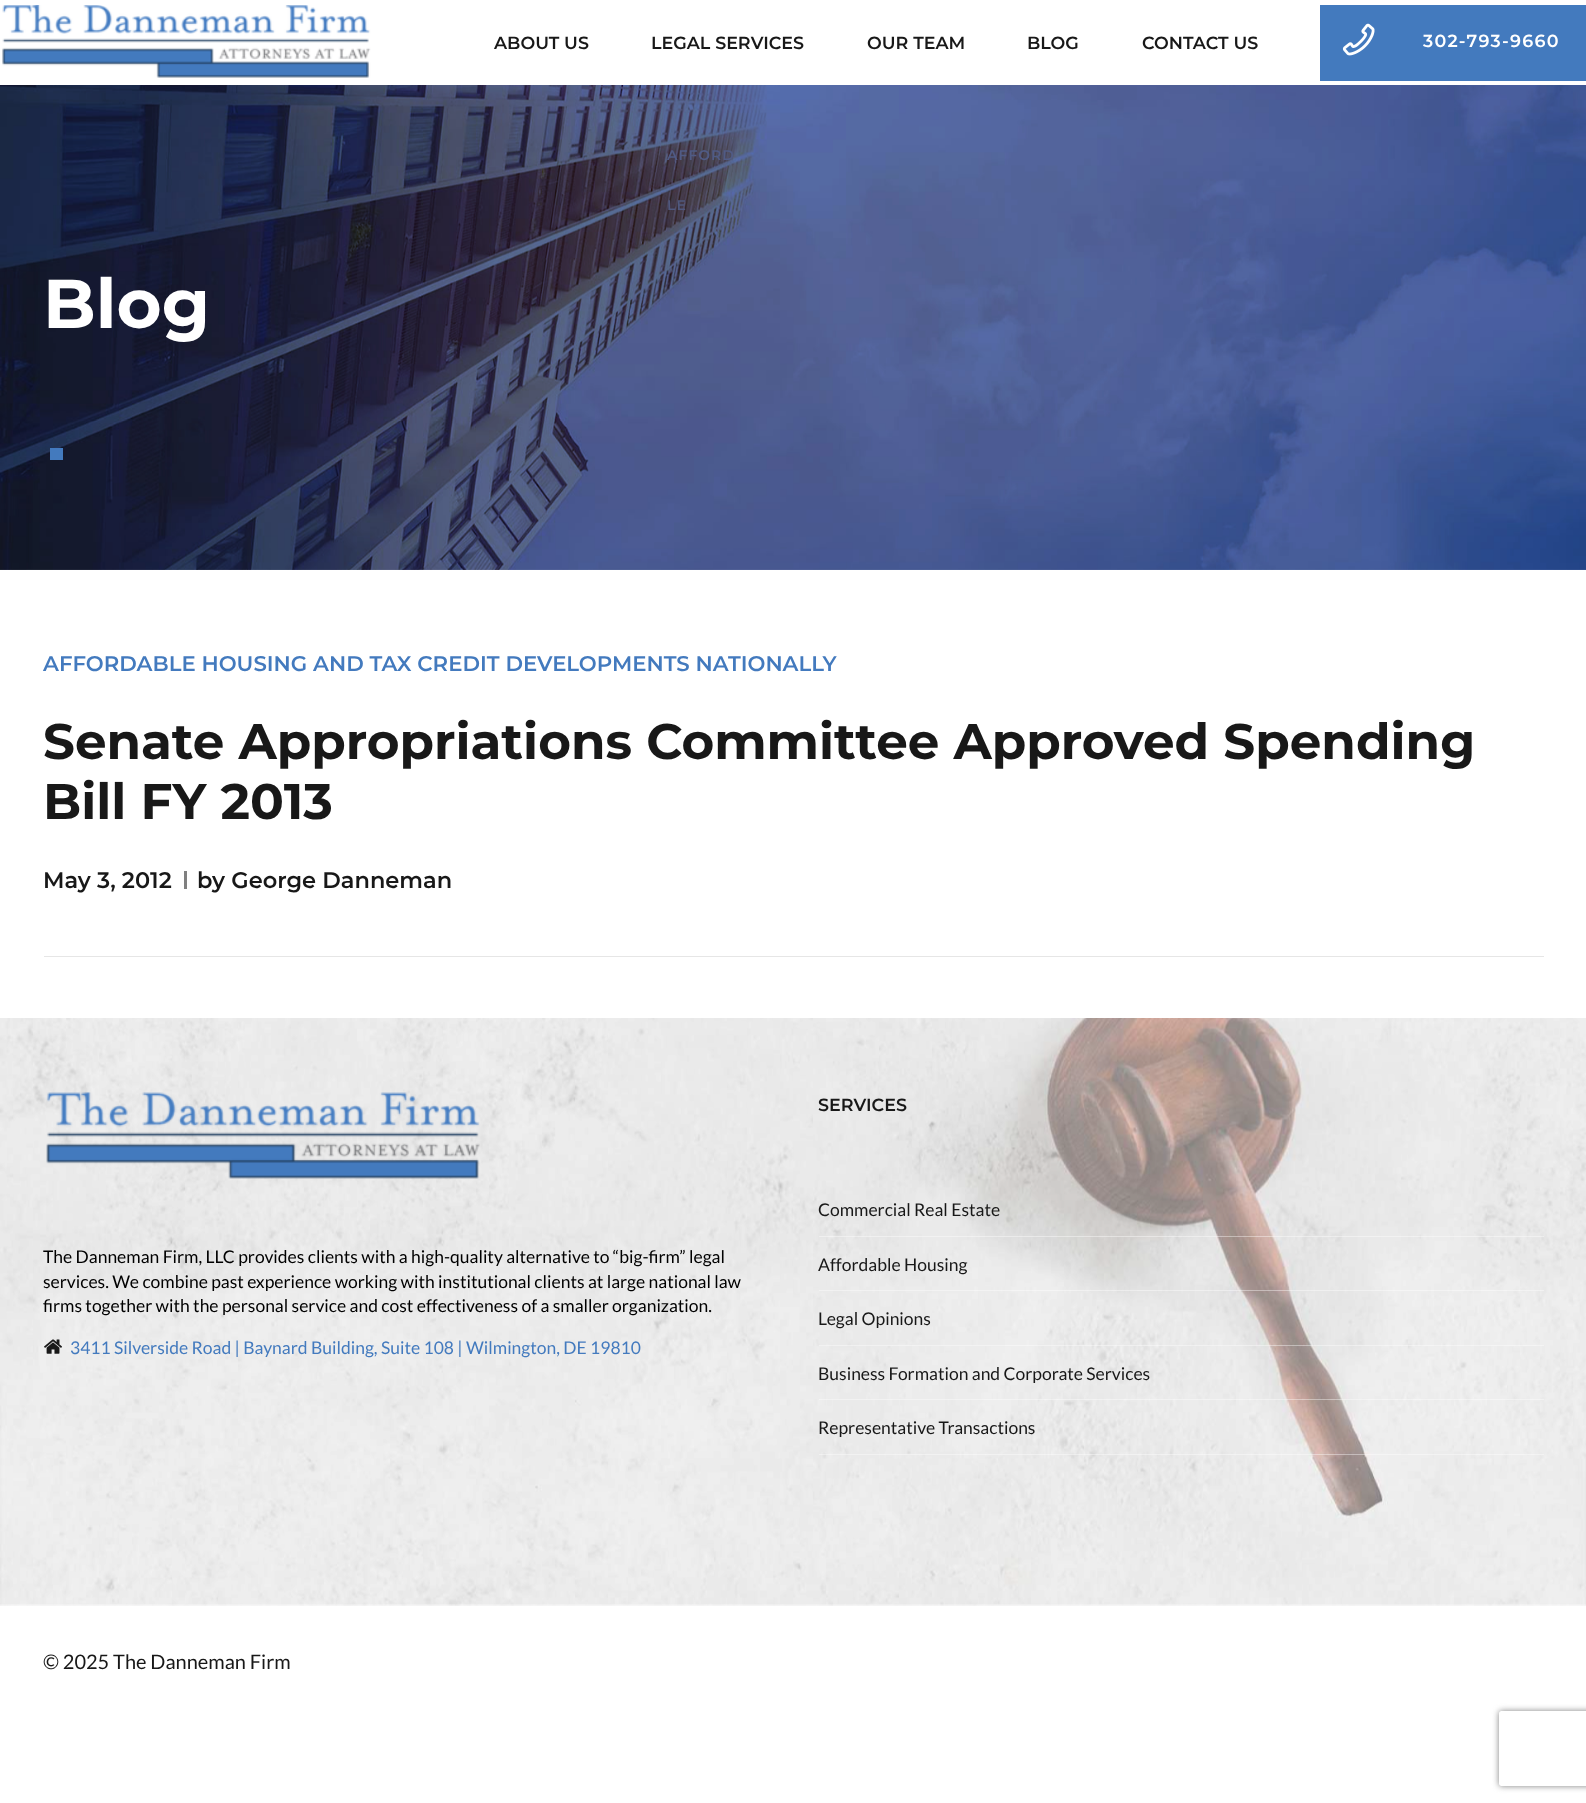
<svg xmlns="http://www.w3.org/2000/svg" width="1586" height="1803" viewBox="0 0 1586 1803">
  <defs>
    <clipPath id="clip1"><path d="M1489 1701H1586V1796H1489ZM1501.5 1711H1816.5C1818 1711 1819 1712 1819 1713.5V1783.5C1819 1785 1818 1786 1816.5 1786H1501.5C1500 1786 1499 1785 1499 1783.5V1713.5C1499 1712 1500 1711 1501.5 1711Z" clip-rule="evenodd"/></clipPath>
  </defs>
  <rect width="100%" height="100%" fill="rgb(255,255,255)"/>
  <image x="2" y="5" width="369" height="73" href="pic1.png"/>
  <g font-family="Montserrat" font-size="17.5" font-weight="600" fill="rgb(24,24,24)">
    <text x="494" y="49">ABOUT US</text>
    <text x="651" y="49">LEGAL SERVICES</text>
  </g>
  <image x="0" y="85" width="1586" height="485" href="pic3.png"/>
  <text x="667" y="160" font-family="Montserrat" font-size="14" font-weight="600" letter-spacing="1" fill="rgb(80,91,133)">AFFORD</text>
  <text x="667" y="210" font-family="Montserrat" font-size="14" font-weight="600" letter-spacing="1" fill="rgb(79,88,126)">LE</text>
  <g font-family="Montserrat" font-size="17.5" font-weight="600" fill="rgb(24,24,24)">
    <text x="867" y="49">OUR TEAM</text>
    <text x="1027" y="49">BLOG</text>
    <text x="1142" y="49">CONTACT US</text>
  </g>
  <rect x="1320" y="5" width="266" height="76" fill="rgb(67,122,190)"/>
  <image x="1342" y="23" width="33" height="33" href="pic2.png"/>
  <text x="1423" y="47" font-family="Montserrat" font-size="17.5" font-weight="600" letter-spacing="1.25" fill="rgb(255,255,255)">302-793-9660</text>
  <text x="43" y="328" font-family="Montserrat" font-size="69" font-weight="bold" fill="rgb(255,255,255)">Blog</text>
  <rect x="50" y="448" width="13" height="12" fill="rgb(67,122,190)"/>
  <rect x="44" y="956" width="1500" height="1" fill="rgb(230,230,230)"/>
  <text x="43" y="671" font-family="Montserrat" font-size="21.25" font-weight="600" fill="rgb(67,122,190)">AFFORDABLE HOUSING AND TAX CREDIT DEVELOPMENTS NATIONALLY</text>
  <g font-family="Montserrat" font-size="50" font-weight="bold" fill="rgb(24,24,24)">
    <text>
      <tspan x="43" y="759">Senate Appropriations Committee Approved Spending</tspan>
      <tspan x="43" y="819">Bill FY 2013</tspan>
    </text>
  </g>
  <text x="43" y="888" font-family="Montserrat" font-size="22.5" font-weight="600" fill="rgb(24,24,24)">May 3, 2012</text>
  <rect x="184" y="871" width="3" height="18" fill="rgb(128,128,128)"/>
  <text x="197" y="888" font-family="Montserrat" font-size="22.5" font-weight="600" fill="rgb(24,24,24)">by George Danneman</text>
  <image x="0" y="1018" width="1586" height="588" href="pic4.png"/>
  <image x="46" y="1092" width="434" height="87" href="pic5.png"/>
  <g font-family="Lato" font-size="17.5" fill="rgb(0,0,0)">
    <text>
      <tspan x="43" y="1263">The Danneman Firm, LLC provides clients with a high-quality alternative to “big-firm” legal</tspan>
      <tspan x="43" y="1288">services. We combine past experience working with institutional clients at large national law</tspan>
      <tspan x="43" y="1312">firms together with the personal service and cost effectiveness of a smaller organization.</tspan>
    </text>
  </g>
  <image x="44" y="1339" width="18" height="15" href="pic6.png"/>
  <text x="70" y="1354" font-family="Lato" font-size="17.5" fill="rgb(67,122,190)">3411 Silverside Road | Baynard Building, Suite 108 | Wilmington, DE 19810</text>
  <text x="818" y="1111" font-family="Montserrat" font-size="17.5" font-weight="600" fill="rgb(24,24,24)">SERVICES</text>
  <rect x="819" y="1236" width="725" height="1" fill="rgba(255,255,255,0.4)"/>
  <text x="818" y="1216" font-family="Lato" font-size="17.5" fill="rgb(24,24,24)">Commercial Real Estate</text>
  <rect x="819" y="1290" width="725" height="1" fill="rgba(255,255,255,0.4)"/>
  <text x="818" y="1271" font-family="Lato" font-size="17.5" fill="rgb(24,24,24)">Affordable Housing</text>
  <rect x="819" y="1345" width="725" height="1" fill="rgba(255,255,255,0.4)"/>
  <text x="818" y="1325" font-family="Lato" font-size="17.5" fill="rgb(24,24,24)">Legal Opinions</text>
  <rect x="819" y="1399" width="725" height="1" fill="rgba(255,255,255,0.4)"/>
  <text x="818" y="1380" font-family="Lato" font-size="17.5" fill="rgb(24,24,24)">Business Formation and Corporate Services</text>
  <rect x="819" y="1454" width="725" height="1" fill="rgba(255,255,255,0.4)"/>
  <text x="818" y="1434" font-family="Lato" font-size="17.5" fill="rgb(24,24,24)">Representative Transactions</text>
  <text x="43" y="1669" font-family="Lato" font-size="20" fill="rgb(24,24,24)">© 2025 The Danneman Firm</text>
  <g clip-path="url(#clip1)">
    <rect x="1499" y="1711" width="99" height="75" rx="2.5" fill="rgb(128,128,128)" filter="blur(3px)"/>
  </g>
</svg>
